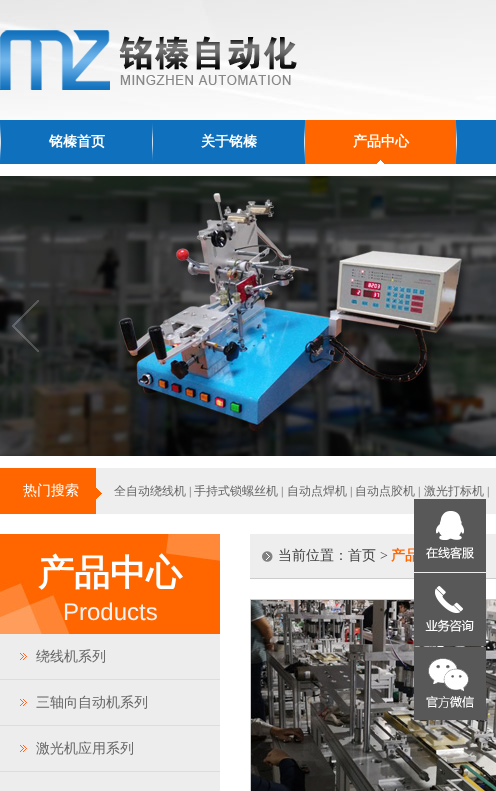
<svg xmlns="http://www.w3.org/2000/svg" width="496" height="791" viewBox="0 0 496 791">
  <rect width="100%" height="100%" fill="rgb(255,255,255)"/>
  <image x="0" y="0" width="496" height="120" href="pic1.png"/>
  <image x="0" y="30" width="297" height="60" href="pic2.png"/>
  <rect x="0" y="120" width="496" height="44" fill="rgb(15,112,189)"/>
  <image x="0" y="123" width="1" height="38" href="pic3.png"/>
  <text x="49" y="146" font-family="WenQuanYi Zen Hei" font-size="14" font-weight="bold" fill="rgb(255,255,255)">铭榛首页</text>
  <image x="152" y="123" width="1" height="38" href="pic3.png"/>
  <text x="201" y="146" font-family="WenQuanYi Zen Hei" font-size="14" font-weight="bold" fill="rgb(255,255,255)">关于铭榛</text>
  <image x="304" y="123" width="1" height="38" href="pic3.png"/>
  <rect x="305" y="120" width="151" height="44" fill="rgb(255,102,0)"/>
  <image x="377" y="160" width="7" height="4" href="pic4.png"/>
  <text x="353" y="146" font-family="WenQuanYi Zen Hei" font-size="14" font-weight="bold" fill="rgb(255,255,255)">产品中心</text>
  <image x="456" y="123" width="1" height="38" href="pic3.png"/>
  <image x="0" y="176" width="496" height="280" href="pic5.png"/>
  <image x="12" y="300" width="27" height="52" href="pic6.png"/>
  <rect x="96" y="468" width="400" height="46" fill="rgb(238,238,238)"/>
  <image x="0" y="468" width="102" height="46" href="pic7.png"/>
  <text x="23" y="495" font-family="WenQuanYi Zen Hei" font-size="14" font-weight="500" fill="rgb(255,255,255)">热门搜索</text>
  <text x="114" y="495" font-family="WenQuanYi Zen Hei" font-size="12" font-weight="500" fill="rgb(102,102,102)">全自动绕线机</text>
  <text x="189" y="495" font-family="Liberation Serif" font-size="12" fill="rgb(102,102,102)">|</text>
  <text x="194" y="495" font-family="WenQuanYi Zen Hei" font-size="12" font-weight="500" fill="rgb(102,102,102)">手持式锁螺丝机</text>
  <text x="281" y="495" font-family="Liberation Serif" font-size="12" fill="rgb(102,102,102)">|</text>
  <text x="287" y="495" font-family="WenQuanYi Zen Hei" font-size="12" font-weight="500" fill="rgb(102,102,102)">自动点焊机</text>
  <text x="350" y="495" font-family="Liberation Serif" font-size="12" fill="rgb(102,102,102)">|</text>
  <text x="355" y="495" font-family="WenQuanYi Zen Hei" font-size="12" font-weight="500" fill="rgb(102,102,102)">自动点胶机</text>
  <text x="418" y="495" font-family="Liberation Serif" font-size="12" fill="rgb(102,102,102)">|</text>
  <text x="424" y="495" font-family="WenQuanYi Zen Hei" font-size="12" font-weight="500" fill="rgb(102,102,102)">激光打标机</text>
  <text x="487" y="495" font-family="Liberation Serif" font-size="12" fill="rgb(102,102,102)">|</text>
  <image x="0" y="534" width="220" height="100" href="pic8.png"/>
  <text x="38" y="585" font-family="WenQuanYi Zen Hei" font-size="36" font-weight="bold" fill="rgb(255,255,255)">产品中心</text>
  <text x="63" y="620" font-family="Liberation Sans" font-size="24" fill="rgb(243,243,243)">Products</text>
  <rect x="0" y="634" width="220" height="157" fill="rgb(237,237,237)"/>
  <rect x="0" y="679" width="220" height="1" fill="rgb(221,221,221)"/>
  <image x="20" y="653" width="7" height="7" href="pic9.png"/>
  <text x="36" y="661" font-family="WenQuanYi Zen Hei" font-size="14" font-weight="500" fill="rgb(102,102,102)">绕线机系列</text>
  <rect x="0" y="725" width="220" height="1" fill="rgb(221,221,221)"/>
  <image x="20" y="699" width="7" height="7" href="pic9.png"/>
  <text x="36" y="707" font-family="WenQuanYi Zen Hei" font-size="14" font-weight="500" fill="rgb(102,102,102)">三轴向自动机系列</text>
  <rect x="0" y="771" width="220" height="1" fill="rgb(221,221,221)"/>
  <image x="20" y="745" width="7" height="7" href="pic9.png"/>
  <text x="36" y="753" font-family="WenQuanYi Zen Hei" font-size="14" font-weight="500" fill="rgb(102,102,102)">激光机应用系列</text>
  <rect x="250" y="534" width="246" height="44" fill="rgb(238,238,238)"/>
  <rect x="250" y="578" width="246" height="1" fill="rgb(204,204,204)"/>
  <image x="262" y="551" width="11" height="11" href="pic10.png"/>
  <text x="278" y="560" font-family="WenQuanYi Zen Hei" font-size="14" font-weight="500" fill="rgb(68,68,68)">当前位置：首页</text>
  <text x="380" y="560" font-family="Liberation Serif" font-size="14" fill="rgb(68,68,68)">&gt;</text>
  <text x="391" y="560" font-family="WenQuanYi Zen Hei" font-size="14" font-weight="bold" fill="rgb(255,102,0)">产品</text>
  <rect x="250.5" y="599.5" width="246" height="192" fill="none" stroke="rgb(205,205,205)"/>
  <image x="251" y="600" width="245" height="191" href="pic11.png"/>
  <rect x="414" y="499" width="72" height="73" fill="rgb(88,88,88)"/>
  <image x="426" y="511" width="48" height="48" href="pic12.png"/>
  <rect x="414" y="573" width="72" height="73" fill="rgb(88,88,88)"/>
  <image x="425" y="586" width="49" height="46" href="pic13.png"/>
  <rect x="414" y="647" width="72" height="73" fill="rgb(88,88,88)"/>
  <image x="426" y="658" width="48" height="50" href="pic14.png"/>
</svg>
